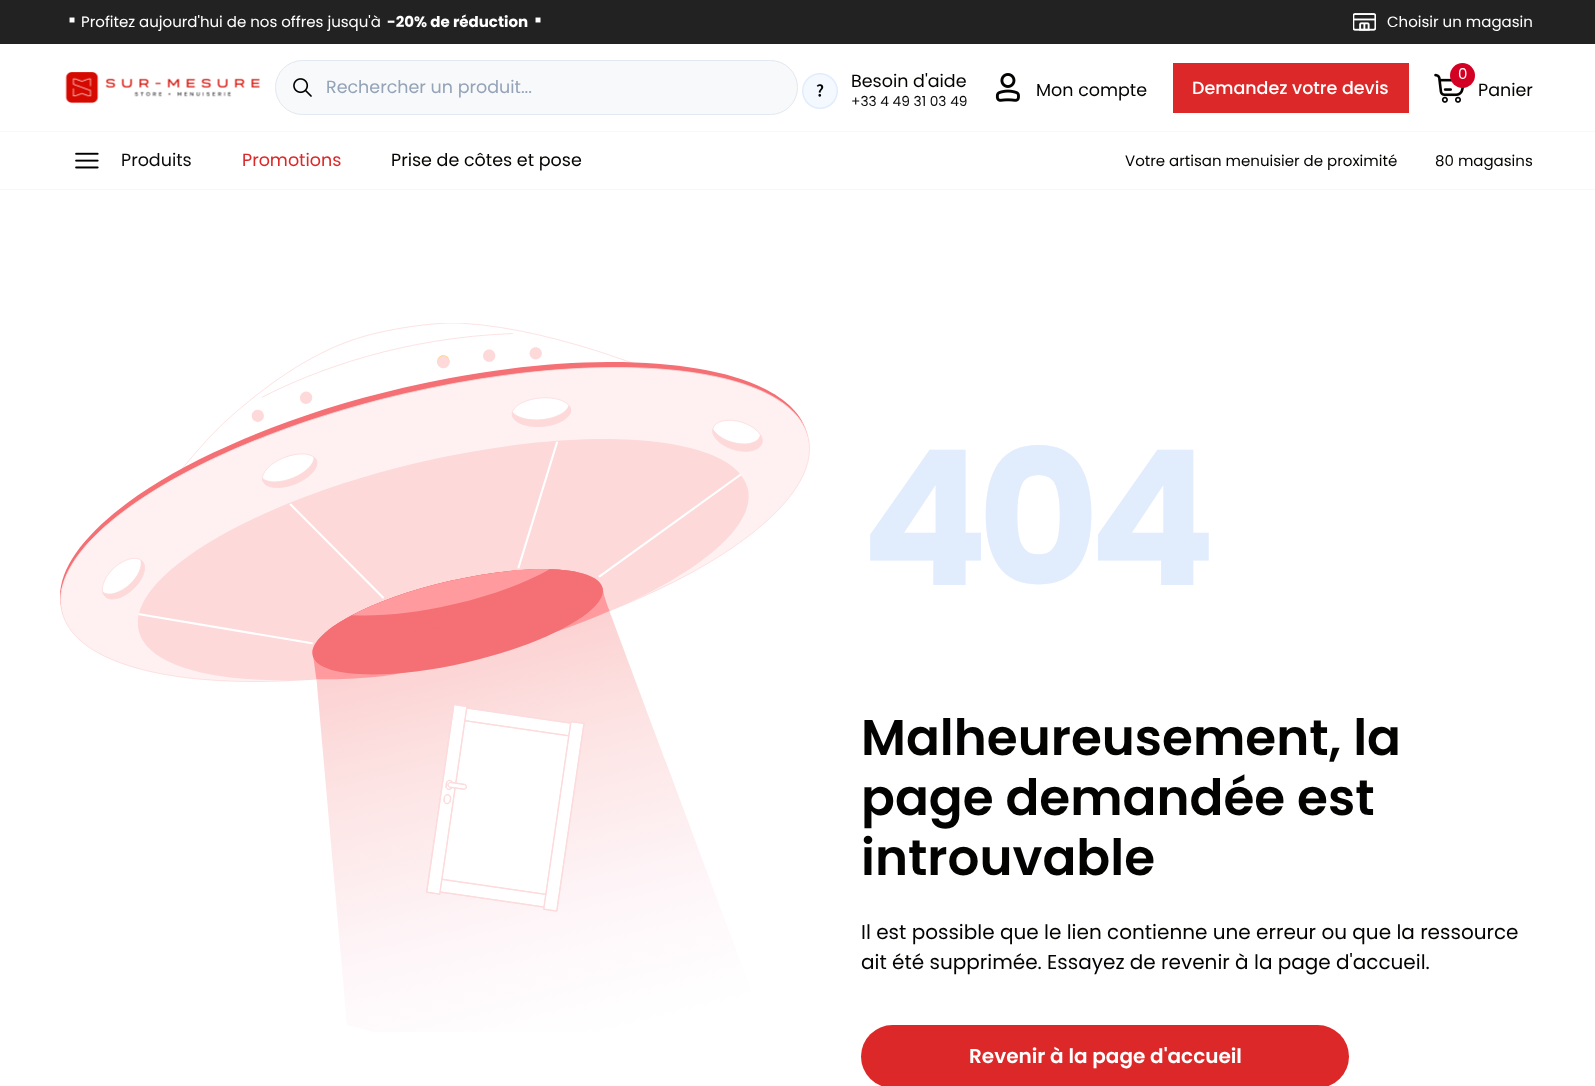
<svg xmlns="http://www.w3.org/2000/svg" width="1595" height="1086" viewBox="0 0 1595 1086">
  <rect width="100%" height="100%" fill="rgb(255,255,255)"/>
  <rect x="0" y="0" width="1595" height="44" fill="rgb(34,34,34)"/>
  <text x="69" y="23" font-family="Liberation Sans" font-size="10" fill="rgb(255,255,255)">■</text>
  <text x="81" y="27" font-family="Poppins" font-size="15" fill="rgb(255,255,255)">Profitez aujourd'hui de nos offres jusqu'à</text>
  <text x="387" y="27" font-family="Poppins" font-size="15" font-weight="bold" fill="rgb(255,255,255)">-20% de réduction</text>
  <text x="535" y="23" font-family="Liberation Sans" font-size="10" fill="rgb(255,255,255)">■</text>
  <image x="1353" y="13" width="23" height="18" href="pic1.png"/>
  <text x="1387" y="27" font-family="Poppins" font-size="15" fill="rgb(255,255,255)">Choisir un magasin</text>
  <image x="65" y="72" width="195" height="32" href="pic2.png"/>
  <rect x="275.5" y="60.5" width="522" height="54" rx="27" fill="rgb(248,249,250)" stroke="rgb(226,232,240)"/>
  <image x="293" y="78" width="19" height="19" href="pic3.png"/>
  <text x="326" y="93" font-family="Poppins" font-size="17.5" fill="rgb(148,163,184)">Rechercher un produit...</text>
  <image x="802" y="73" width="36" height="36" href="pic4.png"/>
  <text x="851" y="87" font-family="Poppins" font-size="17.5" fill="rgb(3,3,1)">Besoin d'aide</text>
  <text x="851" y="106" font-family="Poppins" font-size="13.75" fill="rgb(10,10,10)">+33 4 49 31 03 49</text>
  <image x="995" y="73" width="25" height="29" href="pic5.png"/>
  <text x="1036" y="96" font-family="Poppins" font-size="17.5" fill="rgb(3,3,1)">Mon compte</text>
  <rect x="1173" y="63" width="236" height="50" fill="rgb(220,40,40)"/>
  <text x="1192" y="94" font-family="Poppins" font-size="17.5" font-weight="500" fill="rgb(255,255,255)">Demandez votre devis</text>
  <image x="1434" y="73" width="31" height="30" href="pic6.png"/>
  <circle cx="1462.5" cy="75.5" r="12.5" fill="rgb(212,0,35)"/>
  <text x="1458" y="79" font-family="Poppins" font-size="15" fill="rgb(255,255,255)">0</text>
  <text x="1478" y="96" font-family="Poppins" font-size="17.5" fill="rgb(3,3,1)">Panier</text>
  <rect x="0" y="131" width="1595" height="1" fill="rgb(244,248,255)"/>
  <rect x="0" y="189" width="1595" height="1" fill="rgb(244,248,255)"/>
  <image x="75" y="152" width="24" height="17" href="pic7.png"/>
  <text x="121" y="166" font-family="Poppins" font-size="17.5" fill="rgb(10,10,10)">Produits</text>
  <text x="242" y="166" font-family="Poppins" font-size="17.5" fill="rgb(220,40,40)">Promotions</text>
  <text x="391" y="166" font-family="Poppins" font-size="17.5" fill="rgb(3,3,1)">Prise de côtes et pose</text>
  <g font-family="Poppins" font-size="15" fill="rgb(3,3,1)">
    <text x="1125" y="166">Votre artisan menuisier de proximité</text>
    <text x="1435" y="166">80 magasins</text>
  </g>
  <image x="60" y="323" width="750" height="709" href="pic8.png"/>
  <text x="861" y="585" font-family="Poppins" font-size="188" font-weight="bold" letter-spacing="-11" fill="rgb(225,236,253)">404</text>
  <g font-family="Poppins" font-size="50" font-weight="600" fill="rgb(3,3,1)">
    <text>
      <tspan x="861" y="755">Malheureusement, la</tspan>
      <tspan x="861" y="815">page demandée est</tspan>
      <tspan x="861" y="875">introuvable</tspan>
    </text>
  </g>
  <g font-family="Poppins" font-size="20" fill="rgb(3,3,1)">
    <text>
      <tspan x="861" y="939">Il est possible que le lien contienne une erreur ou que la ressource</tspan>
      <tspan x="861" y="969">ait été supprimée. Essayez de revenir à la page d'accueil.</tspan>
    </text>
  </g>
  <rect x="861" y="1025" width="488" height="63" rx="31.5" fill="rgb(220,40,40)"/>
  <text x="969" y="1063" font-family="Poppins" font-size="20" font-weight="600" fill="rgb(255,255,255)">Revenir à la page d'accueil</text>
</svg>
